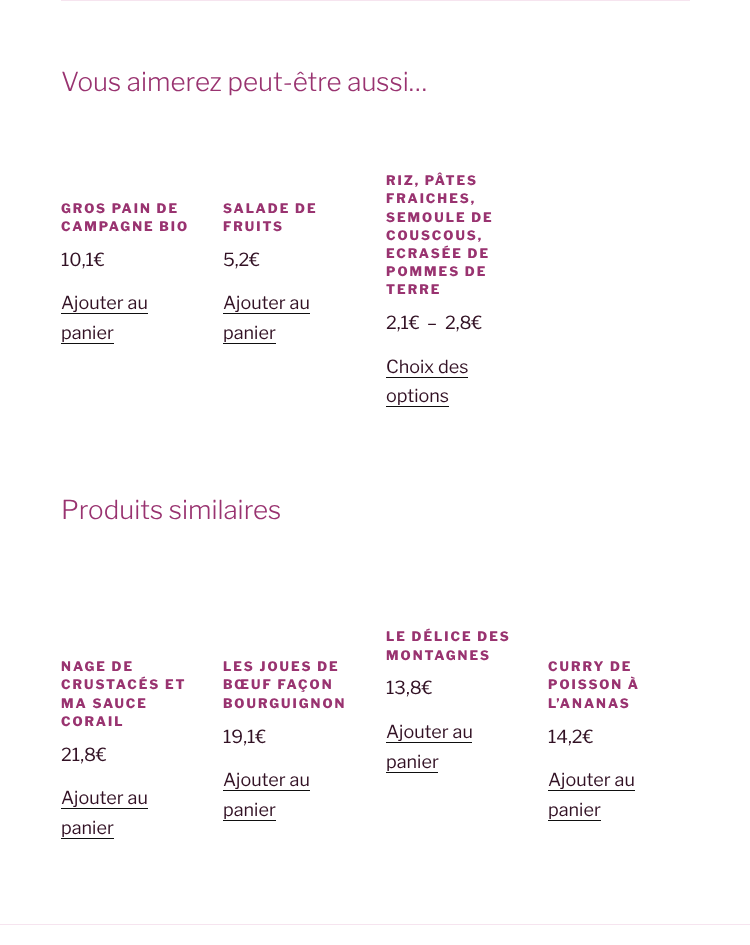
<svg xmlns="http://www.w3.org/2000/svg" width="750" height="945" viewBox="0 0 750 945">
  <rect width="100%" height="100%" fill="rgb(255,255,255)"/>
  <rect x="61" y="0" width="629" height="1" fill="rgb(246,228,239)"/>
  <text x="61" y="91" font-family="Libre Franklin" font-size="26" font-weight="100" fill="rgb(153,51,112)">Vous aimerez peut-être aussi…</text>
  <g font-family="'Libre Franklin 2'" font-size="13" font-weight="100" letter-spacing="2" fill="rgb(153,51,112)">
    <text>
      <tspan x="61" y="213">GROS PAIN DE</tspan>
      <tspan x="61" y="231">CAMPAGNE BIO</tspan>
    </text>
  </g>
  <g font-family="'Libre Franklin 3'" font-size="18" font-weight="100" fill="rgb(50,17,36)">
    <text x="61" y="266">10,1€</text>
    <text x="61" y="309">Ajouter au</text>
  </g>
  <rect x="61" y="313" width="87" height="1" fill="rgb(15,15,15)"/>
  <text x="61" y="339" font-family="'Libre Franklin 3'" font-size="18" font-weight="100" fill="rgb(50,17,36)">panier</text>
  <rect x="61" y="343" width="53" height="1" fill="rgb(15,15,15)"/>
  <g font-family="'Libre Franklin 2'" font-size="13" font-weight="100" letter-spacing="2" fill="rgb(153,51,112)">
    <text>
      <tspan x="223" y="213">SALADE DE</tspan>
      <tspan x="223" y="231">FRUITS</tspan>
    </text>
  </g>
  <g font-family="'Libre Franklin 3'" font-size="18" font-weight="100" fill="rgb(50,17,36)">
    <text x="223" y="266">5,2€</text>
    <text x="223" y="309">Ajouter au</text>
  </g>
  <rect x="223" y="313" width="87" height="1" fill="rgb(15,15,15)"/>
  <text x="223" y="339" font-family="'Libre Franklin 3'" font-size="18" font-weight="100" fill="rgb(50,17,36)">panier</text>
  <rect x="223" y="343" width="53" height="1" fill="rgb(15,15,15)"/>
  <g font-family="'Libre Franklin 2'" font-size="13" font-weight="100" letter-spacing="2" fill="rgb(153,51,112)">
    <text>
      <tspan x="386" y="185">RIZ, PÂTES</tspan>
      <tspan x="386" y="203">FRAICHES,</tspan>
      <tspan x="386" y="222">SEMOULE DE</tspan>
      <tspan x="386" y="240">COUSCOUS,</tspan>
      <tspan x="386" y="258">ECRASÉE DE</tspan>
      <tspan x="386" y="276">POMMES DE</tspan>
      <tspan x="386" y="294">TERRE</tspan>
    </text>
  </g>
  <g font-family="'Libre Franklin 3'" font-size="18" font-weight="100" fill="rgb(50,17,36)">
    <text x="386" y="329">2,1€</text>
    <text x="427" y="329">–</text>
    <text x="445" y="329">2,8€</text>
    <text x="386" y="373">Choix des</text>
  </g>
  <rect x="386" y="377" width="82" height="1" fill="rgb(15,15,15)"/>
  <text x="386" y="402" font-family="'Libre Franklin 3'" font-size="18" font-weight="100" fill="rgb(50,17,36)">options</text>
  <rect x="386" y="406" width="63" height="1" fill="rgb(15,15,15)"/>
  <text x="61" y="519" font-family="Libre Franklin" font-size="26" font-weight="100" fill="rgb(153,51,112)">Produits similaires</text>
  <g font-family="'Libre Franklin 2'" font-size="13" font-weight="100" letter-spacing="2" fill="rgb(153,51,112)">
    <text>
      <tspan x="61" y="671">NAGE DE</tspan>
      <tspan x="61" y="689">CRUSTACÉS ET</tspan>
      <tspan x="61" y="708">MA SAUCE</tspan>
      <tspan x="61" y="726">CORAIL</tspan>
    </text>
  </g>
  <g font-family="'Libre Franklin 3'" font-size="18" font-weight="100" fill="rgb(50,17,36)">
    <text x="61" y="761">21,8€</text>
    <text x="61" y="804">Ajouter au</text>
  </g>
  <rect x="61" y="808" width="87" height="1" fill="rgb(15,15,15)"/>
  <text x="61" y="834" font-family="'Libre Franklin 3'" font-size="18" font-weight="100" fill="rgb(50,17,36)">panier</text>
  <rect x="61" y="838" width="53" height="1" fill="rgb(15,15,15)"/>
  <g font-family="'Libre Franklin 2'" font-size="13" font-weight="100" letter-spacing="2" fill="rgb(153,51,112)">
    <text>
      <tspan x="223" y="671">LES JOUES DE</tspan>
      <tspan x="223" y="689">BŒUF FAÇON</tspan>
      <tspan x="223" y="708">BOURGUIGNON</tspan>
    </text>
  </g>
  <g font-family="'Libre Franklin 3'" font-size="18" font-weight="100" fill="rgb(50,17,36)">
    <text x="223" y="743">19,1€</text>
    <text x="223" y="786">Ajouter au</text>
  </g>
  <rect x="223" y="790" width="87" height="1" fill="rgb(15,15,15)"/>
  <text x="223" y="816" font-family="'Libre Franklin 3'" font-size="18" font-weight="100" fill="rgb(50,17,36)">panier</text>
  <rect x="223" y="820" width="53" height="1" fill="rgb(15,15,15)"/>
  <g font-family="'Libre Franklin 2'" font-size="13" font-weight="100" letter-spacing="2" fill="rgb(153,51,112)">
    <text>
      <tspan x="386" y="641">LE DÉLICE DES</tspan>
      <tspan x="386" y="660">MONTAGNES</tspan>
    </text>
  </g>
  <g font-family="'Libre Franklin 3'" font-size="18" font-weight="100" fill="rgb(50,17,36)">
    <text x="386" y="694">13,8€</text>
    <text x="386" y="738">Ajouter au</text>
  </g>
  <rect x="386" y="742" width="86" height="1" fill="rgb(15,15,15)"/>
  <text x="386" y="768" font-family="'Libre Franklin 3'" font-size="18" font-weight="100" fill="rgb(50,17,36)">panier</text>
  <rect x="386" y="772" width="52" height="1" fill="rgb(15,15,15)"/>
  <g font-family="'Libre Franklin 2'" font-size="13" font-weight="100" letter-spacing="2" fill="rgb(153,51,112)">
    <text>
      <tspan x="548" y="671">CURRY DE</tspan>
      <tspan x="548" y="689">POISSON À</tspan>
      <tspan x="548" y="708">L’ANANAS</tspan>
    </text>
  </g>
  <g font-family="'Libre Franklin 3'" font-size="18" font-weight="100" fill="rgb(50,17,36)">
    <text x="548" y="743">14,2€</text>
    <text x="548" y="786">Ajouter au</text>
  </g>
  <rect x="548" y="790" width="87" height="1" fill="rgb(15,15,15)"/>
  <text x="548" y="816" font-family="'Libre Franklin 3'" font-size="18" font-weight="100" fill="rgb(50,17,36)">panier</text>
  <rect x="548" y="820" width="53" height="1" fill="rgb(15,15,15)"/>
  <rect x="0" y="924" width="750" height="1" fill="rgb(246,228,239)"/>
</svg>
